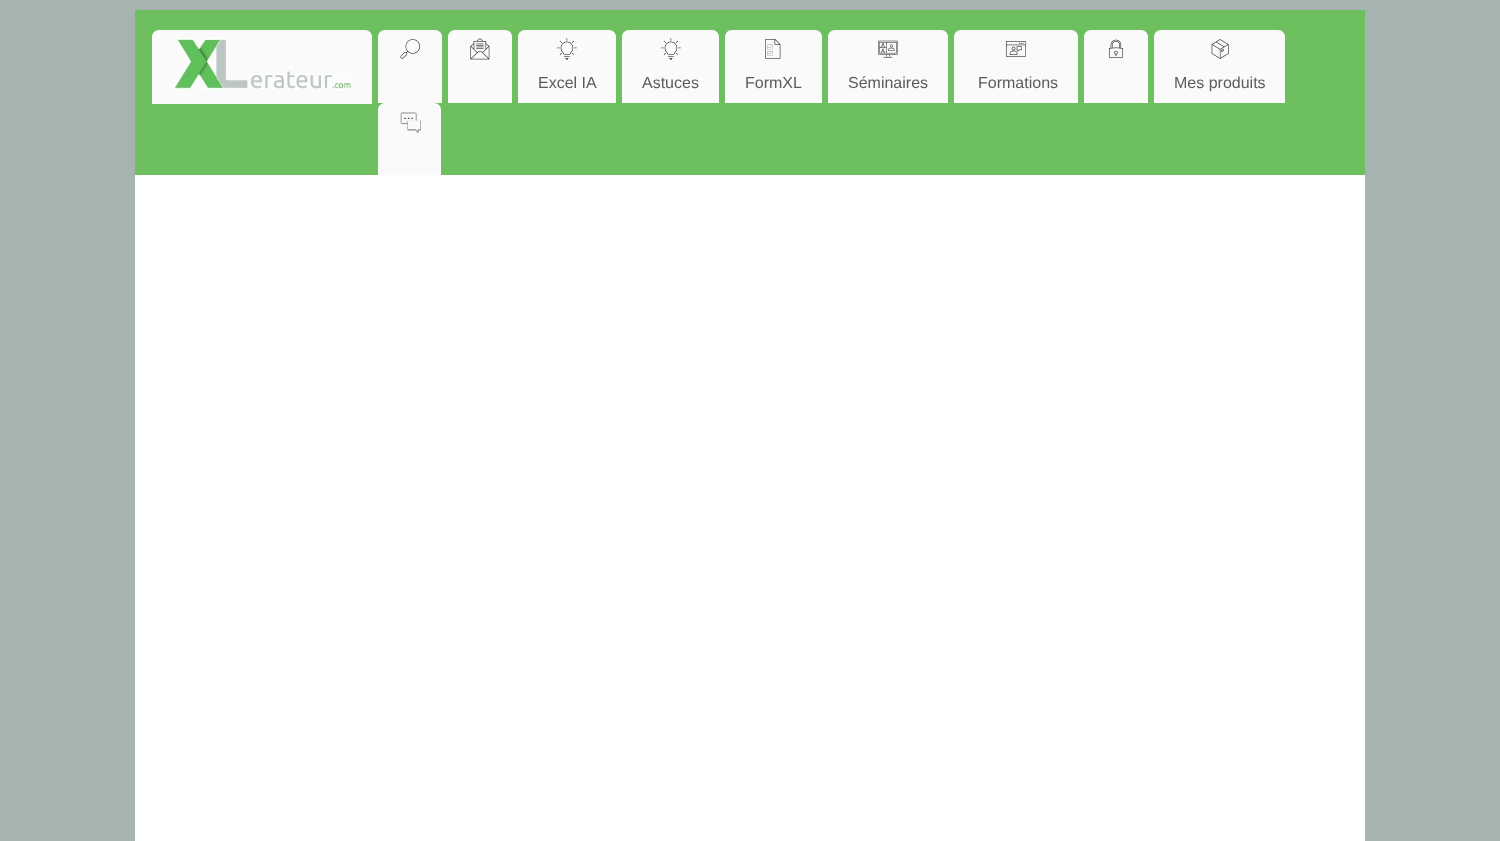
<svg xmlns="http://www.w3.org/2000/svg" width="1500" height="841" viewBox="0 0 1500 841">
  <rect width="100%" height="100%" fill="rgb(166,180,177)"/>
  <rect x="135" y="10" width="1230" height="165" fill="rgb(110,191,96)"/>
  <path d="M159 30H365C369 30 372 33 372 37V104H152V37C152 33 155 30 159 30Z" fill="rgb(250,250,250)"/>
  <image x="172" y="37" width="180" height="53" href="pic1.png"/>
  <path d="M385 30H435C439 30 442 33 442 37V103H378V37C378 33 381 30 385 30Z" fill="rgb(250,250,250)"/>
  <image x="400" y="39" width="20" height="20" href="pic2.png"/>
  <path d="M455 30H505C509 30 512 33 512 37V103H448V37C448 33 451 30 455 30Z" fill="rgb(250,250,250)"/>
  <image x="470" y="38" width="20" height="22" href="pic3.png"/>
  <path d="M525 30H609C613 30 616 33 616 37V103H518V37C518 33 521 30 525 30Z" fill="rgb(250,250,250)"/>
  <image x="557" y="38" width="20" height="22" href="pic4.png"/>
  <text x="538" y="88" font-family="Liberation Sans" font-size="16" fill="rgb(95,91,91)">Excel IA</text>
  <path d="M629 30H712C716 30 719 33 719 37V103H622V37C622 33 625 30 629 30Z" fill="rgb(250,250,250)"/>
  <image x="661" y="38" width="20" height="22" href="pic4.png"/>
  <text x="642" y="88" font-family="Liberation Sans" font-size="16" fill="rgb(95,91,91)">Astuces</text>
  <path d="M732 30H815C819 30 822 33 822 37V103H725V37C725 33 728 30 732 30Z" fill="rgb(250,250,250)"/>
  <image x="765" y="39" width="16" height="20" href="pic5.png"/>
  <text x="745" y="88" font-family="Liberation Sans" font-size="16" fill="rgb(95,91,91)">FormXL</text>
  <path d="M835 30H941C945 30 948 33 948 37V103H828V37C828 33 831 30 835 30Z" fill="rgb(250,250,250)"/>
  <image x="878" y="40" width="20" height="18" href="pic6.png"/>
  <text x="848" y="88" font-family="Liberation Sans" font-size="16" fill="rgb(95,91,91)">Séminaires</text>
  <path d="M961 30H1071C1075 30 1078 33 1078 37V103H954V37C954 33 957 30 961 30Z" fill="rgb(250,250,250)"/>
  <image x="1005" y="41" width="21" height="16" href="pic7.png"/>
  <text x="978" y="88" font-family="Liberation Sans" font-size="16" fill="rgb(95,91,91)">Formations</text>
  <path d="M1091 30H1141C1145 30 1148 33 1148 37V103H1084V37C1084 33 1087 30 1091 30Z" fill="rgb(250,250,250)"/>
  <image x="1108" y="39" width="15" height="19" href="pic8.png"/>
  <path d="M1161 30H1278C1282 30 1285 33 1285 37V103H1154V37C1154 33 1157 30 1161 30Z" fill="rgb(250,250,250)"/>
  <image x="1211" y="39" width="18" height="20" href="pic9.png"/>
  <text x="1174" y="88" font-family="Liberation Sans" font-size="16" fill="rgb(95,91,91)">Mes produits</text>
  <path d="M385 103H434C438 103 441 106 441 110V175H378V110C378 106 381 103 385 103Z" fill="rgb(250,250,250)"/>
  <image x="400" y="112" width="21" height="21" href="pic10.png"/>
  <rect x="135" y="175" width="1230" height="666" fill="rgb(255,255,255)"/>
</svg>
